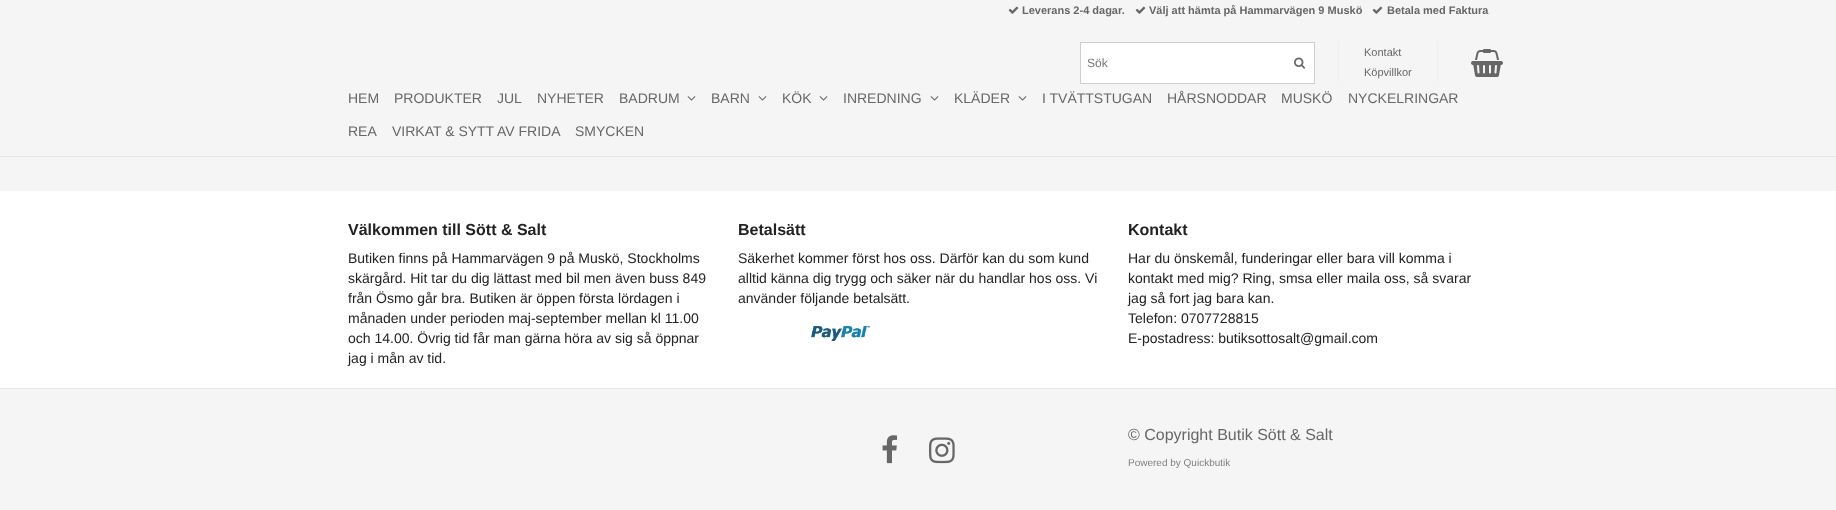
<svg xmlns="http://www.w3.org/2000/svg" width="1836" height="510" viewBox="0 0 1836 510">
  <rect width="100%" height="100%" fill="rgb(245,245,245)"/>
  <rect x="0" y="1" width="1836" height="156" fill="rgba(0,0,0,0.05)" filter="blur(0.5px)"/>
  <rect x="0" y="1" width="1836" height="155" fill="rgb(245,245,245)"/>
  <image x="1008" y="6" width="11" height="8" href="pic1.png"/>
  <text x="1022" y="14" font-family="Liberation Sans" font-size="11" font-weight="bold" fill="rgb(103,103,103)">Leverans 2-4 dagar.</text>
  <image x="1135" y="6" width="11" height="8" href="pic1.png"/>
  <text x="1149" y="14" font-family="Liberation Sans" font-size="11" font-weight="bold" fill="rgb(103,103,103)">Välj att hämta på Hammarvägen 9 Muskö</text>
  <image x="1372" y="6" width="11" height="8" href="pic1.png"/>
  <text x="1387" y="14" font-family="Liberation Sans" font-size="11" font-weight="bold" fill="rgb(103,103,103)">Betala med Faktura</text>
  <rect x="1080.5" y="42.5" width="234" height="41" fill="rgb(255,255,255)" stroke="rgb(206,206,206)"/>
  <text x="1087" y="67" font-family="Liberation Sans" font-size="12" fill="rgb(117,117,117)">Sök</text>
  <image x="1294" y="57" width="12" height="12" href="pic2.png"/>
  <rect x="1437" y="42" width="1" height="40" fill="rgb(239,239,239)"/>
  <rect x="1338" y="42" width="1" height="40" fill="rgb(239,239,239)"/>
  <g font-family="Liberation Sans" font-size="11" fill="rgb(103,103,103)">
    <text>
      <tspan x="1364" y="56">Kontakt</tspan>
      <tspan x="1364" y="76">Köpvillkor</tspan>
    </text>
  </g>
  <image x="1471" y="49" width="32" height="28" href="pic3.png"/>
  <g font-family="Liberation Sans" font-size="14" fill="rgb(103,103,103)">
    <text x="348" y="103">HEM</text>
    <text x="394" y="103">PRODUKTER</text>
    <text x="497" y="103">JUL</text>
    <text x="537" y="103">NYHETER</text>
    <text x="619" y="103">BADRUM</text>
  </g>
  <image x="687" y="96" width="9" height="5" href="pic4.png"/>
  <text x="711" y="103" font-family="Liberation Sans" font-size="14" fill="rgb(103,103,103)">BARN</text>
  <image x="758" y="96" width="9" height="5" href="pic4.png"/>
  <text x="782" y="103" font-family="Liberation Sans" font-size="14" fill="rgb(103,103,103)">KÖK</text>
  <image x="819" y="96" width="9" height="5" href="pic4.png"/>
  <text x="843" y="103" font-family="Liberation Sans" font-size="14" fill="rgb(103,103,103)">INREDNING</text>
  <image x="930" y="96" width="9" height="5" href="pic4.png"/>
  <text x="954" y="103" font-family="Liberation Sans" font-size="14" fill="rgb(103,103,103)">KLÄDER</text>
  <image x="1018" y="96" width="9" height="5" href="pic4.png"/>
  <g font-family="Liberation Sans" font-size="14" fill="rgb(103,103,103)">
    <text x="1042" y="103">I TVÄTTSTUGAN</text>
    <text x="1167" y="103">HÅRSNODDAR</text>
    <text x="1281" y="103">MUSKÖ</text>
    <text x="1348" y="103">NYCKELRINGAR</text>
    <text x="348" y="136">REA</text>
    <text x="392" y="136">VIRKAT &amp; SYTT AV FRIDA</text>
    <text x="575" y="136">SMYCKEN</text>
  </g>
  <rect x="0" y="192" width="1836" height="197" fill="rgba(0,0,0,0.05)" filter="blur(0.5px)"/>
  <rect x="0" y="191" width="1836" height="197" fill="rgb(255,255,255)"/>
  <text x="348" y="235" font-family="Liberation Sans" font-size="16" font-weight="bold" fill="rgb(34,34,34)">Välkommen till Sött &amp; Salt</text>
  <g font-family="Liberation Sans" font-size="14" fill="rgb(34,34,34)">
    <text>
      <tspan x="348" y="263">Butiken finns på Hammarvägen 9 på Muskö, Stockholms</tspan>
      <tspan x="348" y="283">skärgård. Hit tar du dig lättast med bil men även buss 849</tspan>
      <tspan x="348" y="303">från Ösmo går bra. Butiken är öppen första lördagen i</tspan>
      <tspan x="348" y="323">månaden under perioden maj-september mellan kl 11.00</tspan>
      <tspan x="348" y="343">och 14.00. Övrig tid får man gärna höra av sig så öppnar</tspan>
      <tspan x="348" y="363">jag i mån av tid.</tspan>
    </text>
  </g>
  <text x="738" y="235" font-family="Liberation Sans" font-size="16" font-weight="bold" fill="rgb(34,34,34)">Betalsätt</text>
  <g font-family="Liberation Sans" font-size="14" fill="rgb(34,34,34)">
    <text>
      <tspan x="738" y="263">Säkerhet kommer först hos oss. Därför kan du som kund</tspan>
      <tspan x="738" y="283">alltid känna dig trygg och säker när du handlar hos oss. Vi</tspan>
      <tspan x="738" y="303">använder följande betalsätt.</tspan>
    </text>
  </g>
  <image x="811" y="326" width="59" height="15" href="pic5.png"/>
  <text x="1128" y="235" font-family="Liberation Sans" font-size="16" font-weight="bold" fill="rgb(34,34,34)">Kontakt</text>
  <g font-family="Liberation Sans" font-size="14" fill="rgb(34,34,34)">
    <text>
      <tspan x="1128" y="263">Har du önskemål, funderingar eller bara vill komma i</tspan>
      <tspan x="1128" y="283">kontakt med mig? Ring, smsa eller maila oss, så svarar</tspan>
      <tspan x="1128" y="303">jag så fort jag bara kan.</tspan>
      <tspan x="1128" y="323">Telefon: 0707728815</tspan>
      <tspan x="1128" y="343">E-postadress: butiksottosalt@gmail.com</tspan>
    </text>
  </g>
  <image x="882" y="435" width="16" height="29" href="pic6.png"/>
  <image x="929" y="437" width="26" height="27" href="pic7.png"/>
  <text x="1128" y="440" font-family="Liberation Sans" font-size="16" fill="rgb(103,103,103)">© Copyright Butik Sött &amp; Salt</text>
  <text x="1128" y="466" font-family="Liberation Sans" font-size="10" fill="rgb(129,129,129)">Powered by Quickbutik</text>
</svg>
